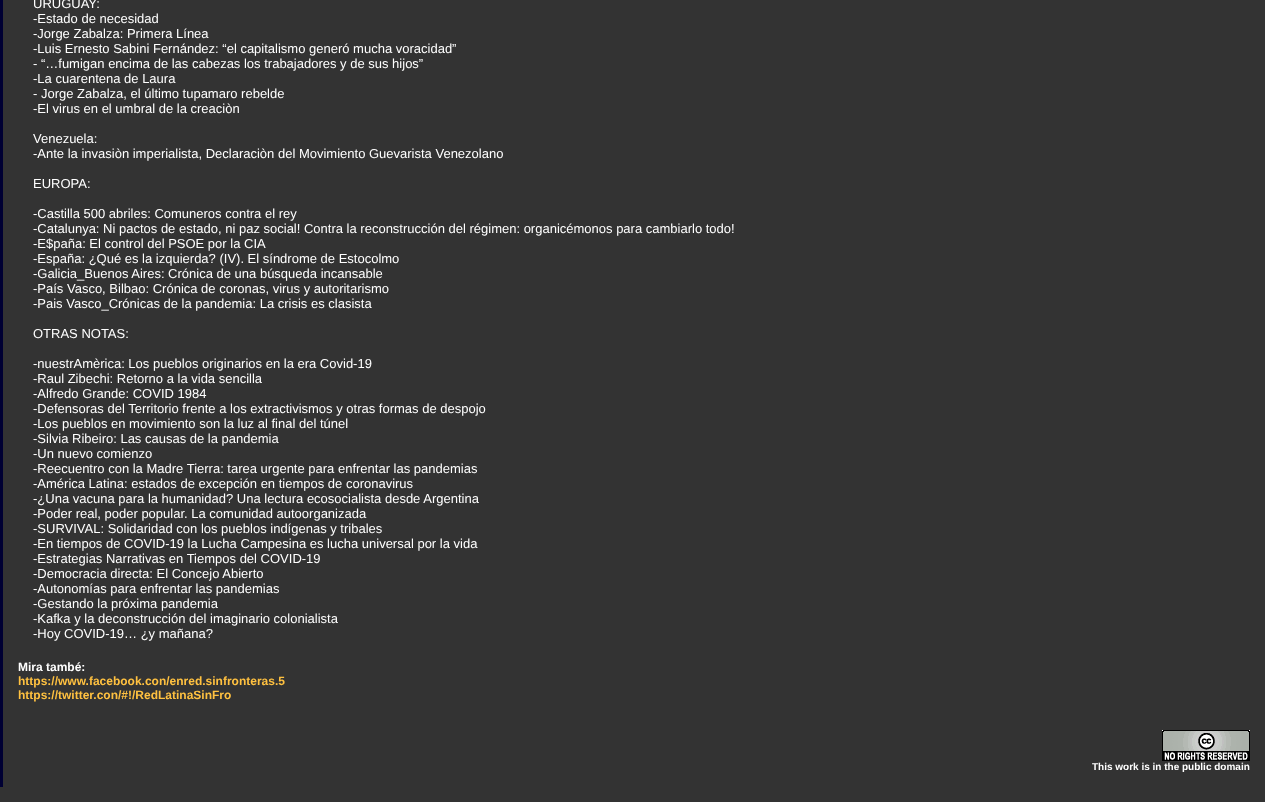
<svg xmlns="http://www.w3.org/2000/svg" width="1265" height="802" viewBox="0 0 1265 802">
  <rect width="100%" height="100%" fill="rgb(51,51,51)"/>
  <rect x="0" y="0" width="3" height="787" fill="rgb(0,0,51)"/>
  <g font-family="Liberation Sans" font-size="13" fill="rgb(255,255,255)">
    <text>
      <tspan x="33" y="8">URUGUAY:</tspan>
      <tspan x="33" y="23">-Estado de necesidad</tspan>
      <tspan x="33" y="38">-Jorge Zabalza: Primera Línea</tspan>
      <tspan x="33" y="53">-Luis Ernesto Sabini Fernández: “el capitalismo generó mucha voracidad”</tspan>
      <tspan x="33" y="68">- “…fumigan encima de las cabezas los trabajadores y de sus hijos”</tspan>
      <tspan x="33" y="83">-La cuarentena de Laura</tspan>
      <tspan x="33" y="98">- Jorge Zabalza, el último tupamaro rebelde</tspan>
      <tspan x="33" y="113">-El virus en el umbral de la creaciòn</tspan>
    </text>
    <text>
      <tspan x="33" y="143">Venezuela:</tspan>
      <tspan x="33" y="158">-Ante la invasiòn imperialista, Declaraciòn del Movimiento Guevarista Venezolano</tspan>
    </text>
    <text x="33" y="188">EUROPA:</text>
    <text>
      <tspan x="33" y="218">-Castilla 500 abriles: Comuneros contra el rey</tspan>
      <tspan x="33" y="233">-Catalunya: Ni pactos de estado, ni paz social! Contra la reconstrucción del régimen: organicémonos para cambiarlo todo!</tspan>
      <tspan x="33" y="248">-E$paña: El control del PSOE por la CIA</tspan>
      <tspan x="33" y="263">-España: ¿Qué es la izquierda? (IV). El síndrome de Estocolmo</tspan>
      <tspan x="33" y="278">-Galicia_Buenos Aires: Crónica de una búsqueda incansable</tspan>
      <tspan x="33" y="293">-País Vasco, Bilbao: Crónica de coronas, virus y autoritarismo</tspan>
      <tspan x="33" y="308">-Pais Vasco_Crónicas de la pandemia: La crisis es clasista</tspan>
    </text>
    <text x="33" y="338">OTRAS NOTAS:</text>
    <text>
      <tspan x="33" y="368">-nuestrAmèrica: Los pueblos originarios en la era Covid-19</tspan>
      <tspan x="33" y="383">-Raul Zibechi: Retorno a la vida sencilla</tspan>
      <tspan x="33" y="398">-Alfredo Grande: COVID 1984</tspan>
      <tspan x="33" y="413">-Defensoras del Territorio frente a los extractivismos y otras formas de despojo</tspan>
      <tspan x="33" y="428">-Los pueblos en movimiento son la luz al final del túnel</tspan>
      <tspan x="33" y="443">-Silvia Ribeiro: Las causas de la pandemia</tspan>
      <tspan x="33" y="458">-Un nuevo comienzo</tspan>
      <tspan x="33" y="473">-Reecuentro con la Madre Tierra: tarea urgente para enfrentar las pandemias</tspan>
      <tspan x="33" y="488">-América Latina: estados de excepción en tiempos de coronavirus</tspan>
      <tspan x="33" y="503">-¿Una vacuna para la humanidad? Una lectura ecosocialista desde Argentina</tspan>
      <tspan x="33" y="518">-Poder real, poder popular. La comunidad autoorganizada</tspan>
      <tspan x="33" y="533">-SURVIVAL: Solidaridad con los pueblos indígenas y tribales</tspan>
      <tspan x="33" y="548">-En tiempos de COVID-19 la Lucha Campesina es lucha universal por la vida</tspan>
      <tspan x="33" y="563">-Estrategias Narrativas en Tiempos del COVID-19</tspan>
      <tspan x="33" y="578">-Democracia directa: El Concejo Abierto</tspan>
      <tspan x="33" y="593">-Autonomías para enfrentar las pandemias</tspan>
      <tspan x="33" y="608">-Gestando la próxima pandemia</tspan>
      <tspan x="33" y="623">-Kafka y la deconstrucción del imaginario colonialista</tspan>
      <tspan x="33" y="638">-Hoy COVID-19… ¿y mañana?</tspan>
    </text>
  </g>
  <text x="18" y="671" font-family="Liberation Sans" font-size="12" font-weight="bold" fill="rgb(255,255,255)">Mira també:</text>
  <g font-family="Liberation Sans" font-size="12" font-weight="bold" fill="rgb(255,193,64)">
    <text>
      <tspan x="18" y="685">https://www.facebook.con/enred.sinfronteras.5</tspan>
      <tspan x="18" y="699">https://twitter.con/#!/RedLatinaSinFro</tspan>
    </text>
  </g>
  <image x="1162" y="730" width="88" height="31" href="pic1.png"/>
  <text x="1092" y="770" font-family="Liberation Sans" font-size="10" font-weight="bold" fill="rgb(255,255,255)">This work is in the public domain</text>
</svg>
